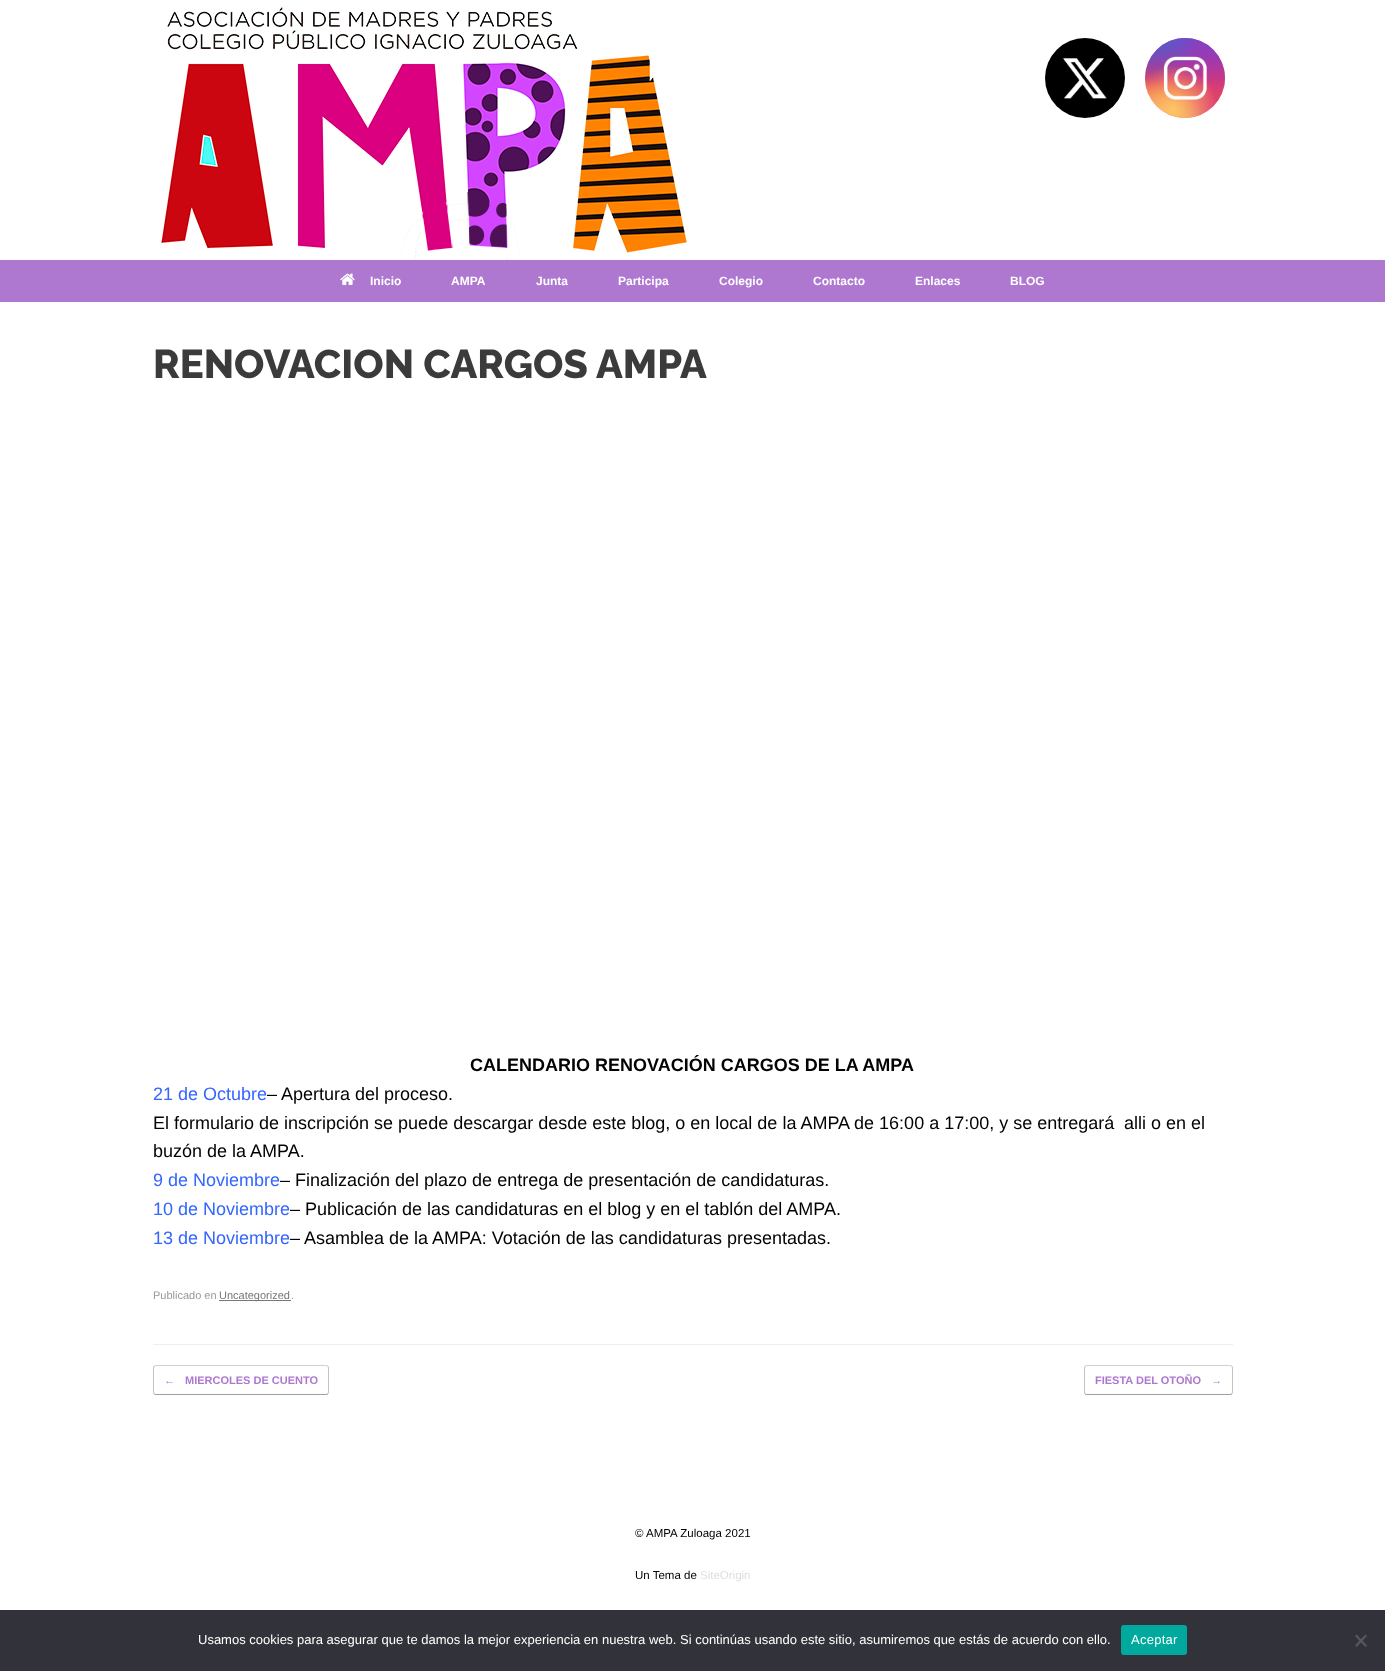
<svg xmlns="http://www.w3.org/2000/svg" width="1385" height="1671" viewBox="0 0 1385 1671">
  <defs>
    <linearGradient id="g1" gradientUnits="userSpaceOnUse" x1="1185" y1="38" x2="1185" y2="118"><stop offset="0" stop-color="rgb(101,89,202)"/><stop offset="0.3" stop-color="rgb(188,49,143)"/><stop offset="0.5" stop-color="rgb(227,63,95)"/><stop offset="0.7" stop-color="rgb(247,118,56)"/><stop offset="1" stop-color="rgb(254,198,109)"/></linearGradient>
    <radialGradient id="g2" gradientUnits="userSpaceOnUse" cx="1225" cy="118" r="113"><stop offset="0" stop-color="rgb(217,49,122)"/><stop offset="1" stop-color="rgb(217,49,122)" stop-opacity="0"/></radialGradient>
    <radialGradient id="g3" gradientUnits="userSpaceOnUse" cx="0" cy="0" r="1" gradientTransform="matrix(68 0 0 136 1193 22)"><stop offset="0" stop-color="rgb(137,61,194)"/><stop offset="0.5" stop-color="rgb(137,61,194)" stop-opacity="0"/></radialGradient>
    <radialGradient id="g4" gradientUnits="userSpaceOnUse" cx="1225" cy="38" r="113"><stop offset="0" stop-color="rgb(137,61,194)"/><stop offset="0.5" stop-color="rgb(137,61,194)" stop-opacity="0"/></radialGradient>
    <radialGradient id="g5" gradientUnits="userSpaceOnUse" cx="0" cy="0" r="1" gradientTransform="matrix(91 0 0 170 1161 -2)"><stop offset="0" stop-color="rgb(82,88,207)"/><stop offset="0.5" stop-color="rgb(82,88,207)" stop-opacity="0"/></radialGradient>
    <radialGradient id="g6" gradientUnits="userSpaceOnUse" cx="0" cy="0" r="1" gradientTransform="matrix(113 0 0 141 1145 18)"><stop offset="0" stop-color="rgb(82,88,207)"/><stop offset="0.5" stop-color="rgb(82,88,207)" stop-opacity="0"/></radialGradient>
    <radialGradient id="g7" gradientUnits="userSpaceOnUse" cx="1145" cy="150" r="138"><stop offset="0" stop-color="rgb(254,197,100)"/><stop offset="0.5" stop-color="rgb(254,197,100)" stop-opacity="0"/></radialGradient>
    <radialGradient id="g8" gradientUnits="userSpaceOnUse" cx="1173" cy="110" r="89"><stop offset="0" stop-color="rgb(254,197,100)"/><stop offset="0.5" stop-color="rgb(254,197,100)" stop-opacity="0"/></radialGradient>
  </defs>
  <rect width="100%" height="100%" fill="rgb(255,255,255)"/>
  <circle cx="1085" cy="78" r="40" fill="rgb(0,0,0)"/>
  <image x="1063" y="58" width="44" height="41" href="pic1.png"/>
  <circle cx="1185" cy="78" r="40" fill="url(#g1)"/>
  <circle cx="1185" cy="78" r="40" fill="url(#g2)"/>
  <circle cx="1185" cy="78" r="40" fill="url(#g3)"/>
  <circle cx="1185" cy="78" r="40" fill="url(#g4)"/>
  <circle cx="1185" cy="78" r="40" fill="url(#g5)"/>
  <circle cx="1185" cy="78" r="40" fill="url(#g6)"/>
  <circle cx="1185" cy="78" r="40" fill="url(#g7)"/>
  <circle cx="1185" cy="78" r="40" fill="url(#g8)"/>
  <image x="1163" y="56" width="44" height="44" href="pic2.png"/>
  <image x="161" y="7" width="526" height="253" href="pic3.png"/>
  <rect x="0" y="260" width="1385" height="42" fill="rgb(174,120,209)"/>
  <image x="340" y="273" width="15" height="12" href="pic4.png"/>
  <g font-family="Liberation Sans" font-size="12" font-weight="bold" fill="rgb(255,255,255)">
    <text x="370" y="285">Inicio</text>
    <text x="451" y="285">AMPA</text>
    <text x="536" y="285">Junta</text>
    <text x="618" y="285">Participa</text>
    <text x="719" y="285">Colegio</text>
    <text x="813" y="285">Contacto</text>
    <text x="915" y="285">Enlaces</text>
    <text x="1010" y="285">BLOG</text>
  </g>
  <rect x="153" y="1344" width="1080" height="1" fill="rgb(238,238,238)"/>
  <text x="153" y="378" font-family="Raleway" font-size="40" font-weight="100" fill="rgb(59,59,59)">RENOVACION CARGOS AMPA</text>
  <text x="470" y="1071" font-family="Liberation Sans" font-size="18" font-weight="bold" fill="rgb(2,2,2)">CALENDARIO RENOVACIÓN CARGOS DE LA AMPA</text>
  <text x="153" y="1100" font-family="Liberation Sans" font-size="18" fill="rgb(51,102,255)">21 de Octubre</text>
  <g font-family="Liberation Sans" font-size="18" fill="rgb(2,2,2)">
    <text x="267" y="1100">– Apertura del proceso.</text>
    <text x="153" y="1129">El formulario de inscripción se puede descargar desde este blog, o en local de la AMPA de 16:00 a 17:00, y se entregará</text>
    <text x="1124" y="1129">alli o en el</text>
    <text x="153" y="1157">buzón de la AMPA.</text>
  </g>
  <text x="153" y="1186" font-family="Liberation Sans" font-size="18" fill="rgb(51,102,255)">9 de Noviembre</text>
  <text x="280" y="1186" font-family="Liberation Sans" font-size="18" fill="rgb(2,2,2)">– Finalización del plazo de entrega de presentación de candidaturas.</text>
  <text x="153" y="1215" font-family="Liberation Sans" font-size="18" fill="rgb(51,102,255)">10 de Noviembre</text>
  <text x="290" y="1215" font-family="Liberation Sans" font-size="18" fill="rgb(2,2,2)">– Publicación de las candidaturas en el blog y en el tablón del AMPA.</text>
  <text x="153" y="1244" font-family="Liberation Sans" font-size="18" fill="rgb(51,102,255)">13 de Noviembre</text>
  <text x="290" y="1244" font-family="Liberation Sans" font-size="18" fill="rgb(2,2,2)">– Asamblea de la AMPA: Votación de las candidaturas presentadas.</text>
  <text x="153" y="1299" font-family="Liberation Sans" font-size="11" fill="rgb(153,153,153)">Publicado en</text>
  <rect x="219" y="1300" width="72" height="1" fill="rgb(119,119,119)"/>
  <text x="219" y="1299" font-family="Liberation Sans" font-size="11" fill="rgb(119,119,119)">Uncategorized</text>
  <text x="291" y="1299" font-family="Liberation Sans" font-size="11" fill="rgb(153,153,153)">.</text>
  <path d="M154 1366L156 1365.5H326L328 1366" fill="none" stroke="rgb(210,210,210)"/>
  <path d="M328 1366C328 1366.5 328.5 1367.5 328.5 1368V1392C328.5 1392.5 328 1393.5 328 1394" fill="none" stroke="rgb(195,195,195)"/>
  <path d="M328 1394L326 1394.5H156L154 1394" fill="none" stroke="rgb(159,159,159)"/>
  <path d="M154 1394C154 1393.5 153.5 1392.5 153.5 1392V1368C153.5 1367.5 154 1366.5 154 1366" fill="none" stroke="rgb(195,195,195)"/>
  <g font-family="Liberation Sans" font-size="11" font-weight="bold" fill="rgb(174,120,209)">
    <text x="164" y="1384">←</text>
    <text x="185" y="1384">MIERCOLES DE CUENTO</text>
  </g>
  <path d="M1085 1366L1087 1365.5H1230L1232 1366" fill="none" stroke="rgb(210,210,210)"/>
  <path d="M1232 1366C1232 1366.5 1232.5 1367.5 1232.5 1368V1392C1232.5 1392.5 1232 1393.5 1232 1394" fill="none" stroke="rgb(195,195,195)"/>
  <path d="M1232 1394L1230 1394.5H1087L1085 1394" fill="none" stroke="rgb(159,159,159)"/>
  <path d="M1085 1394C1085 1393.5 1084.5 1392.5 1084.5 1392V1368C1084.5 1367.5 1085 1366.5 1085 1366" fill="none" stroke="rgb(195,195,195)"/>
  <g font-family="Liberation Sans" font-size="11" font-weight="bold" fill="rgb(174,120,209)">
    <text x="1095" y="1384">FIESTA DEL OTOÑO</text>
    <text x="1211" y="1384">→</text>
  </g>
  <g font-family="Liberation Sans" font-size="11.5" fill="rgb(2,2,2)">
    <text x="635" y="1537">© AMPA Zuloaga 2021</text>
    <text x="635" y="1579">Un Tema de</text>
  </g>
  <text x="700" y="1579" font-family="Liberation Sans" font-size="11.5" fill="rgb(221,221,221)">SiteOrigin</text>
  <rect x="0" y="1610" width="1385" height="61" fill="rgb(50,50,58)"/>
  <text x="198" y="1644" font-family="Liberation Sans" font-size="13" fill="rgb(255,255,255)">Usamos cookies para asegurar que te damos la mejor experiencia en nuestra web. Si continúas usando este sitio, asumiremos que estás de acuerdo con ello.</text>
  <rect x="1121" y="1625" width="66" height="30" rx="3" fill="rgb(0,169,157)"/>
  <text x="1131" y="1644" font-family="Liberation Sans" font-size="13" letter-spacing="0.25" fill="rgb(255,255,255)">Aceptar</text>
  <path d="M1365.5 1634.5L1367 1636L1356.5 1647L1355 1645.5Z" fill="rgb(89,89,93)"/>
  <path d="M1355 1636L1356.5 1634.5L1367 1645.5L1365.5 1647Z" fill="rgb(89,89,93)"/>
</svg>
